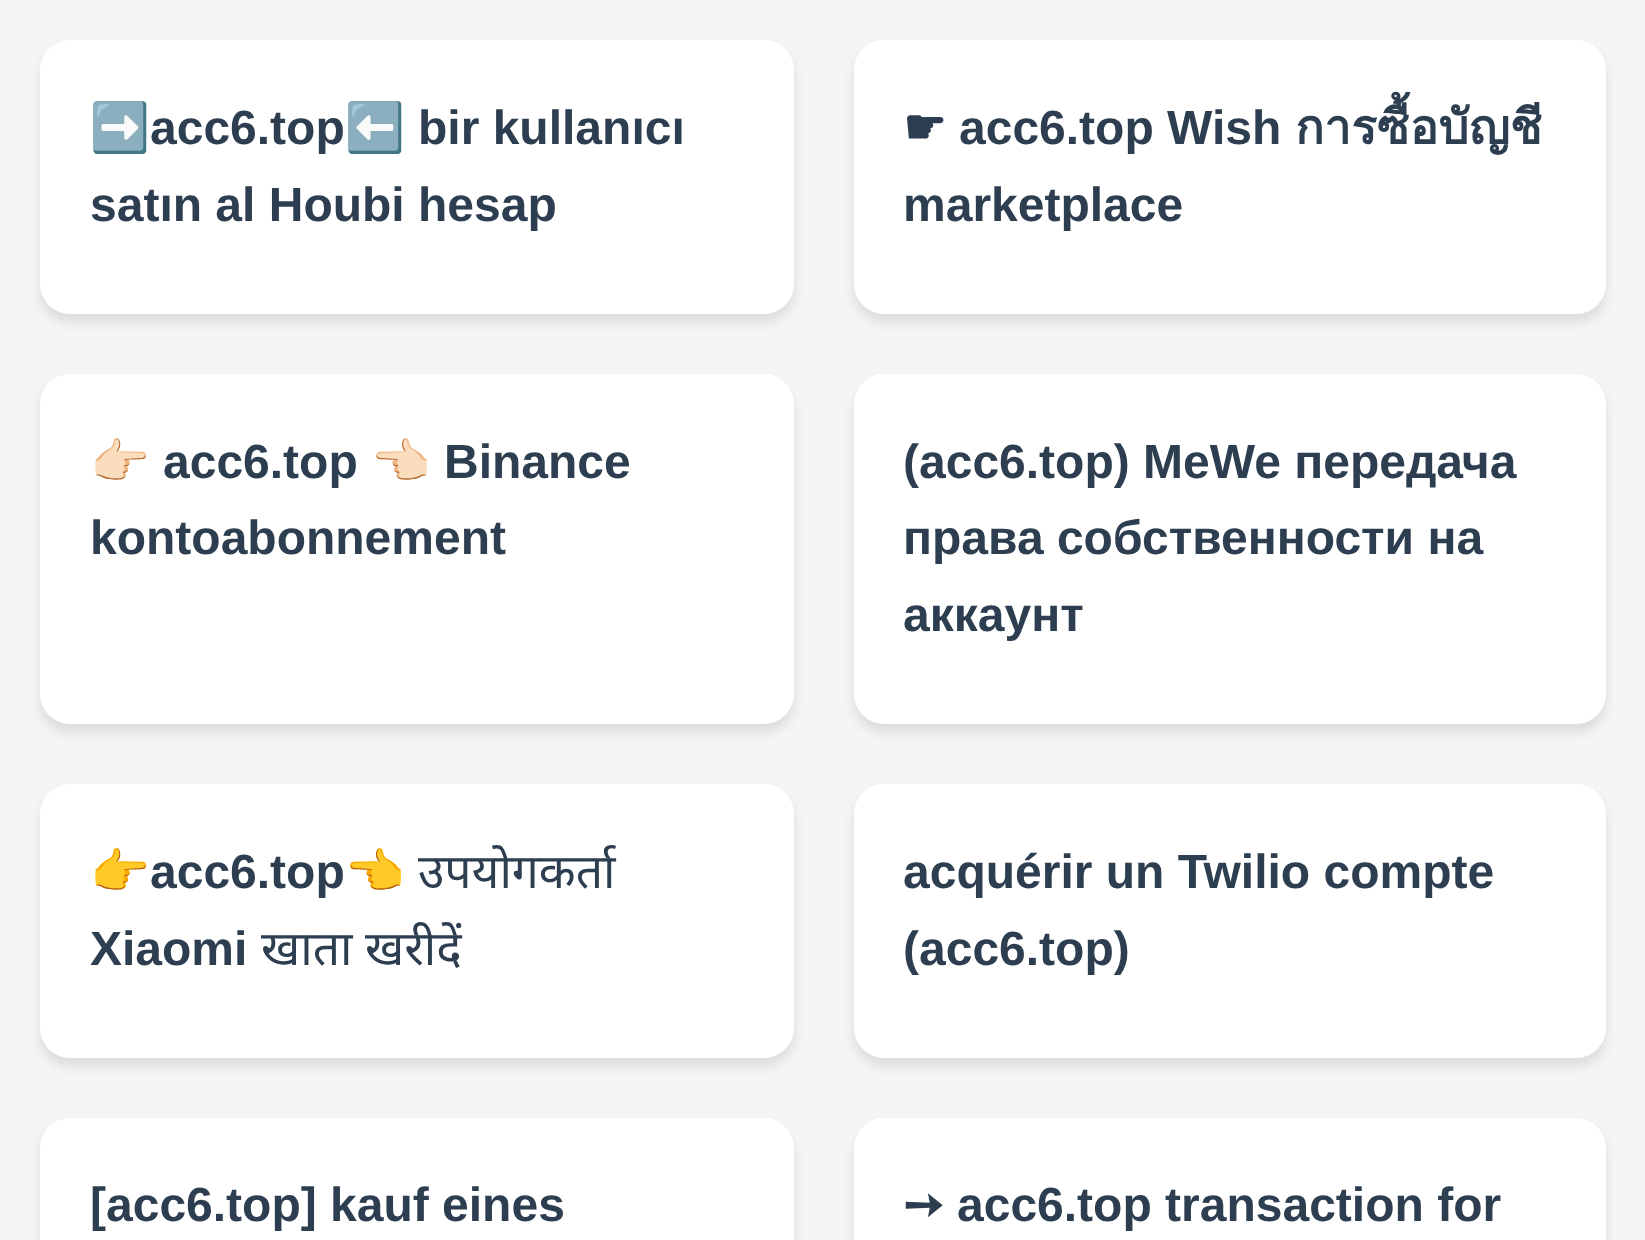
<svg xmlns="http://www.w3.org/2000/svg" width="1645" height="1240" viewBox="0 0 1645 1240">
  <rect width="100%" height="100%" fill="rgb(245,245,245)"/>
  <rect x="40" y="48" width="754" height="274" rx="30" fill="rgba(0,0,0,0.1)" filter="blur(6px)"/>
  <rect x="40" y="40" width="754" height="274" rx="30" fill="rgb(255,255,255)"/>
  <text x="90" y="144" font-family="Noto Color Emoji" font-size="48" font-weight="bold" fill="rgb(44,62,80)">➡️</text>
  <text x="150" y="144" font-family="Liberation Sans" font-size="48" font-weight="bold" fill="rgb(44,62,80)">acc6.top</text>
  <text x="345" y="144" font-family="Noto Color Emoji" font-size="48" font-weight="bold" fill="rgb(44,62,80)">⬅️</text>
  <g font-family="Liberation Sans" font-size="48" font-weight="bold" fill="rgb(44,62,80)">
    <text x="418" y="144">bir kullanıcı</text>
    <text x="90" y="221">satın al Houbi hesap</text>
  </g>
  <rect x="854" y="48" width="752" height="274" rx="30" fill="rgba(0,0,0,0.1)" filter="blur(6px)"/>
  <rect x="854" y="40" width="752" height="274" rx="30" fill="rgb(255,255,255)"/>
  <text x="903" y="144" font-family="DejaVu Sans" font-size="48" font-weight="bold" fill="rgb(44,62,80)">☛</text>
  <text x="959" y="144" font-family="Liberation Sans" font-size="48" font-weight="bold" fill="rgb(44,62,80)">acc6.top Wish</text>
  <text x="1295" y="144" font-family="Loma" font-size="48" font-weight="bold" fill="rgb(44,62,80)">การซื้อบัญชี</text>
  <text x="903" y="221" font-family="Liberation Sans" font-size="48" font-weight="bold" fill="rgb(44,62,80)">marketplace</text>
  <rect x="40" y="382" width="754" height="350" rx="30" fill="rgba(0,0,0,0.1)" filter="blur(6px)"/>
  <rect x="40" y="374" width="754" height="350" rx="30" fill="rgb(255,255,255)"/>
  <text x="90" y="478" font-family="Noto Color Emoji" font-size="48" font-weight="bold" fill="rgb(44,62,80)">👉🏻</text>
  <text x="163" y="478" font-family="Liberation Sans" font-size="48" font-weight="bold" fill="rgb(44,62,80)">acc6.top</text>
  <text x="371" y="478" font-family="Noto Color Emoji" font-size="48" font-weight="bold" fill="rgb(44,62,80)">👈🏻</text>
  <g font-family="Liberation Sans" font-size="48" font-weight="bold" fill="rgb(44,62,80)">
    <text x="444" y="478">Binance</text>
    <text x="90" y="554">kontoabonnement</text>
  </g>
  <rect x="854" y="382" width="752" height="350" rx="30" fill="rgba(0,0,0,0.1)" filter="blur(6px)"/>
  <rect x="854" y="374" width="752" height="350" rx="30" fill="rgb(255,255,255)"/>
  <g font-family="Liberation Sans" font-size="48" font-weight="bold" fill="rgb(44,62,80)">
    <text>
      <tspan x="903" y="478">(acc6.top) MeWe передача</tspan>
      <tspan x="903" y="554">права собственности на</tspan>
      <tspan x="903" y="631">аккаунт</tspan>
    </text>
  </g>
  <rect x="40" y="792" width="754" height="274" rx="30" fill="rgba(0,0,0,0.1)" filter="blur(6px)"/>
  <rect x="40" y="784" width="754" height="274" rx="30" fill="rgb(255,255,255)"/>
  <text x="90" y="888" font-family="'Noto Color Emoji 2'" font-size="48" font-weight="bold" fill="rgb(44,62,80)">👉</text>
  <text x="150" y="888" font-family="Liberation Sans" font-size="48" font-weight="bold" fill="rgb(44,62,80)">acc6.top</text>
  <text x="345" y="888" font-family="'Noto Color Emoji 2'" font-size="48" font-weight="bold" fill="rgb(44,62,80)">👈</text>
  <text x="418" y="888" font-family="Noto Sans" font-size="48" fill="rgb(44,62,80)">उपयोगकर्ता</text>
  <text x="90" y="965" font-family="Liberation Sans" font-size="48" font-weight="bold" fill="rgb(44,62,80)">Xiaomi</text>
  <text x="261" y="965" font-family="Noto Sans" font-size="48" fill="rgb(44,62,80)">खाता खरीदें</text>
  <rect x="854" y="792" width="752" height="274" rx="30" fill="rgba(0,0,0,0.1)" filter="blur(6px)"/>
  <rect x="854" y="784" width="752" height="274" rx="30" fill="rgb(255,255,255)"/>
  <g font-family="Liberation Sans" font-size="48" font-weight="bold" fill="rgb(44,62,80)">
    <text>
      <tspan x="903" y="888">acquérir un Twilio compte</tspan>
      <tspan x="903" y="965">(acc6.top)</tspan>
    </text>
  </g>
  <rect x="40" y="1126" width="754" height="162" rx="30" fill="rgba(0,0,0,0.1)" filter="blur(6px)"/>
  <rect x="40" y="1118" width="754" height="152" rx="30" fill="rgb(255,255,255)"/>
  <text x="90" y="1221" font-family="Liberation Sans" font-size="48" font-weight="bold" fill="rgb(44,62,80)">[acc6.top] kauf eines</text>
  <rect x="854" y="1126" width="752" height="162" rx="30" fill="rgba(0,0,0,0.1)" filter="blur(6px)"/>
  <rect x="854" y="1118" width="752" height="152" rx="30" fill="rgb(255,255,255)"/>
  <text x="903" y="1221" font-family="DejaVu Sans" font-size="48" font-weight="bold" fill="rgb(44,62,80)">➙</text>
  <text x="957" y="1221" font-family="Liberation Sans" font-size="48" font-weight="bold" fill="rgb(44,62,80)">acc6.top transaction for</text>
</svg>
